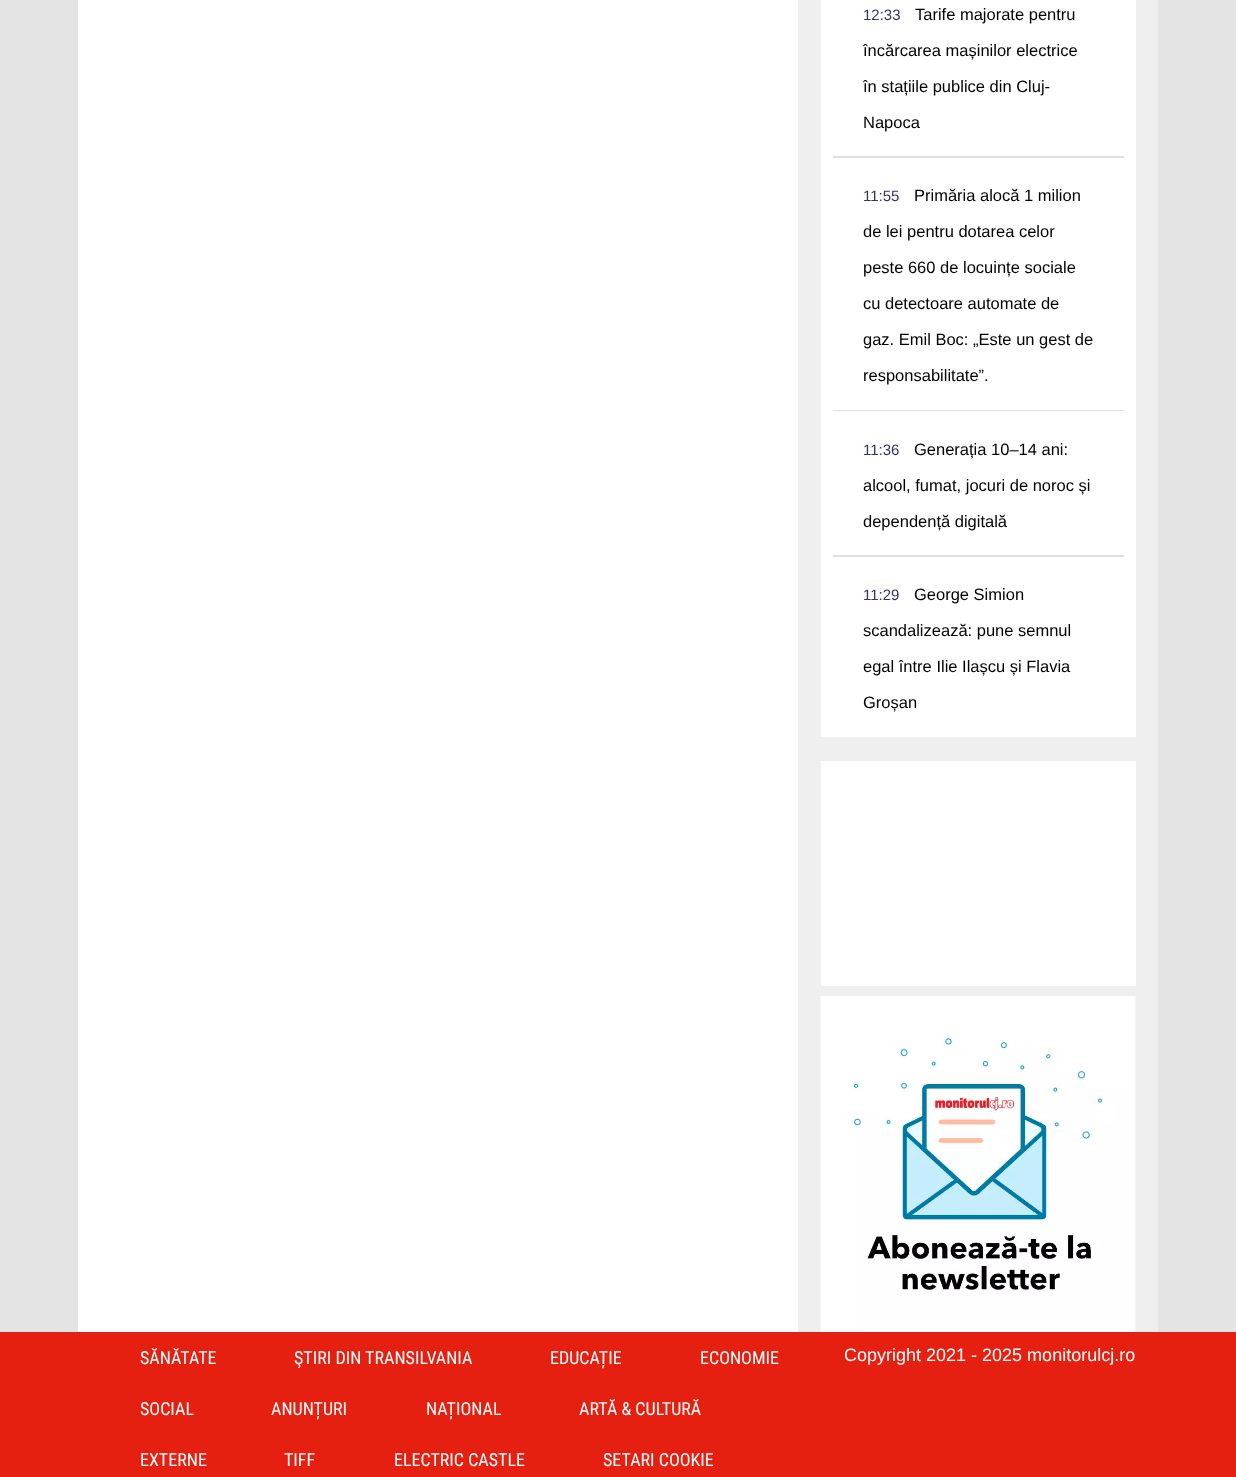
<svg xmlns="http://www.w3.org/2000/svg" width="1236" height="1477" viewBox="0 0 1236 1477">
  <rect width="100%" height="100%" fill="rgb(228,228,228)"/>
  <rect x="798" y="0" width="360" height="1332" fill="rgb(240,239,239)"/>
  <rect x="78" y="0" width="720" height="1332" fill="rgb(255,255,255)"/>
  <rect x="821" y="0" width="315" height="737" fill="rgb(255,255,255)"/>
  <rect x="833" y="156" width="291" height="2" fill="rgb(223,223,223)"/>
  <text x="863" y="20" font-family="Liberation Sans" font-size="15" fill="rgb(49,51,105)">12:33</text>
  <g font-family="Liberation Sans" font-size="16.5" fill="rgb(0,0,0)">
    <text x="915" y="20">Tarife majorate pentru</text>
    <text x="863" y="56">încărcarea mașinilor electrice</text>
    <text x="863" y="92">în stațiile publice din Cluj-</text>
    <text x="863" y="128">Napoca</text>
  </g>
  <rect x="833" y="410" width="291" height="1" fill="rgb(223,223,223)"/>
  <text x="863" y="201" font-family="Liberation Sans" font-size="15" fill="rgb(49,51,105)">11:55</text>
  <g font-family="Liberation Sans" font-size="16.5" fill="rgb(0,0,0)">
    <text x="914" y="201">Primăria alocă 1 milion</text>
    <text x="863" y="237">de lei pentru dotarea celor</text>
    <text x="863" y="273">peste 660 de locuințe sociale</text>
    <text x="863" y="309">cu detectoare automate de</text>
    <text x="863" y="345">gaz. Emil Boc: „Este un gest de</text>
    <text x="863" y="381">responsabilitate”.</text>
  </g>
  <rect x="833" y="555" width="291" height="2" fill="rgb(223,223,223)"/>
  <text x="863" y="455" font-family="Liberation Sans" font-size="15" fill="rgb(49,51,105)">11:36</text>
  <g font-family="Liberation Sans" font-size="16.5" fill="rgb(0,0,0)">
    <text x="914" y="455">Generația 10–14 ani:</text>
    <text x="863" y="491">alcool, fumat, jocuri de noroc și</text>
    <text x="863" y="527">dependență digitală</text>
  </g>
  <text x="863" y="600" font-family="Liberation Sans" font-size="15" fill="rgb(49,51,105)">11:29</text>
  <g font-family="Liberation Sans" font-size="16.5" fill="rgb(0,0,0)">
    <text x="914" y="600">George Simion</text>
    <text x="863" y="636">scandalizează: pune semnul</text>
    <text x="863" y="672">egal între Ilie Ilașcu și Flavia</text>
    <text x="863" y="708">Groșan</text>
  </g>
  <rect x="821" y="761" width="315" height="225" fill="rgb(255,255,255)"/>
  <image x="820" y="996" width="316" height="336" href="pic1.png"/>
  <rect x="0" y="1332" width="1236" height="145" fill="rgb(230,32,16)"/>
  <g font-family="Roboto Condensed" font-size="18" fill="rgb(255,255,255)">
    <text x="140" y="1364">SĂNĂTATE</text>
    <text x="294" y="1364">ŞTIRI DIN TRANSILVANIA</text>
    <text x="550" y="1364">EDUCAȚIE</text>
    <text x="700" y="1364">ECONOMIE</text>
    <text x="140" y="1415">SOCIAL</text>
    <text x="271" y="1415">ANUNȚURI</text>
    <text x="426" y="1415">NAȚIONAL</text>
    <text x="579" y="1415">ARTĂ &amp; CULTURĂ</text>
    <text x="140" y="1466">EXTERNE</text>
    <text x="284" y="1466">TIFF</text>
    <text x="394" y="1466">ELECTRIC CASTLE</text>
    <text x="603" y="1466">SETARI COOKIE</text>
  </g>
  <text x="844" y="1361" font-family="Liberation Sans" font-size="18" fill="rgb(255,255,255)">Copyright 2021 - 2025 monitorulcj.ro</text>
</svg>
